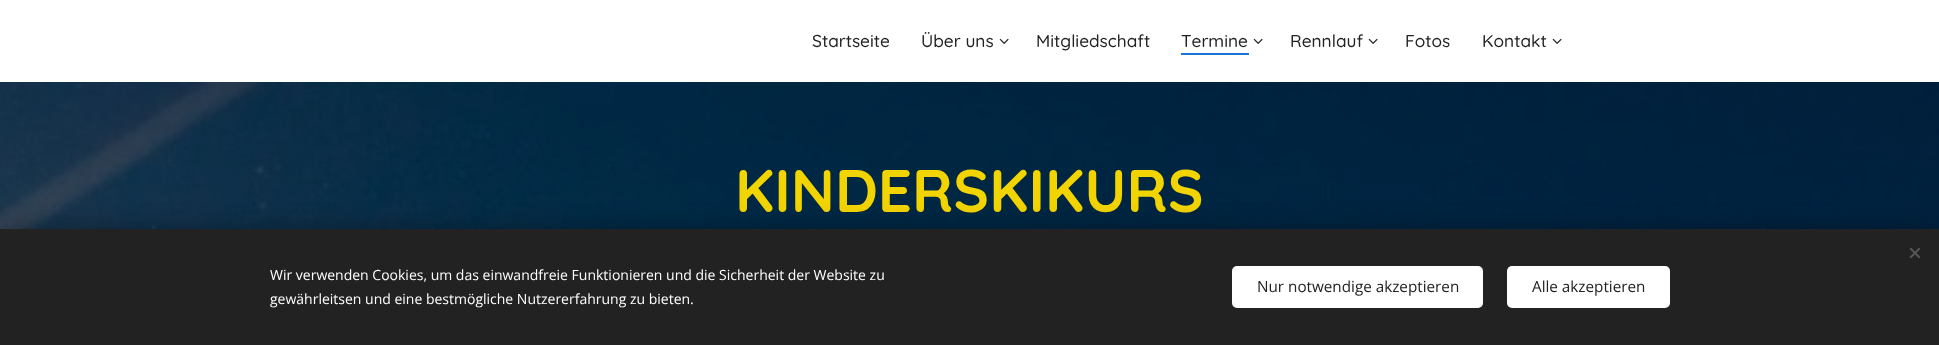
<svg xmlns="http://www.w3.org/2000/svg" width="1939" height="345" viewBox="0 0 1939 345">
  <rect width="100%" height="100%" fill="rgb(255,255,255)"/>
  <g font-family="Quicksand" font-size="17.25" font-weight="500" fill="rgb(34,34,34)">
    <text x="812" y="47">Startseite</text>
    <text x="921" y="47">Über uns</text>
  </g>
  <image x="999" y="38" width="10" height="6" href="pic1.png"/>
  <g font-family="Quicksand" font-size="17.25" font-weight="500" fill="rgb(34,34,34)">
    <text x="1036" y="47">Mitgliedschaft</text>
    <text x="1181" y="47">Termine</text>
  </g>
  <rect x="1181" y="53" width="68" height="2" fill="rgb(25,118,210)"/>
  <image x="1253" y="38" width="10" height="6" href="pic1.png"/>
  <text x="1290" y="47" font-family="Quicksand" font-size="17.25" font-weight="500" fill="rgb(34,34,34)">Rennlauf</text>
  <image x="1368" y="38" width="10" height="6" href="pic1.png"/>
  <g font-family="Quicksand" font-size="17.25" font-weight="500" fill="rgb(34,34,34)">
    <text x="1405" y="47">Fotos</text>
    <text x="1482" y="47">Kontakt</text>
  </g>
  <image x="1552" y="38" width="10" height="6" href="pic1.png"/>
  <image x="0" y="82" width="1939" height="147" href="pic2.png"/>
  <text x="735" y="212" font-family="Quicksand" font-size="60" font-weight="bold" fill="rgb(242,212,0)">KINDERSKIKURS</text>
  <rect x="0" y="229" width="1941" height="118" fill="rgba(0,0,0,0.33)" filter="blur(12.5px)"/>
  <rect x="0" y="229" width="1939" height="116" fill="rgb(34,34,34)"/>
  <path d="M1909.5 257L1919 247.5L1920.5 249L1911 258.5Z" fill="rgb(85,85,85)"/>
  <path d="M1911 247.5L1920.5 257L1919 258.5L1909.5 249Z" fill="rgb(85,85,85)"/>
  <g font-family="Open Sans" font-size="14" fill="rgb(255,255,255)">
    <text>
      <tspan x="270" y="280">Wir verwenden Cookies, um das einwandfreie Funktionieren und die Sicherheit der Website zu</tspan>
      <tspan x="270" y="304">gewährleitsen und eine bestmögliche Nutzererfahrung zu bieten.</tspan>
    </text>
  </g>
  <rect x="1232" y="266" width="251" height="42" rx="5" fill="rgb(255,255,255)"/>
  <text x="1257" y="292" font-family="Open Sans" font-size="15.25" fill="rgb(34,34,34)">Nur notwendige akzeptieren</text>
  <rect x="1507" y="266" width="163" height="42" rx="5" fill="rgb(255,255,255)"/>
  <text x="1532" y="292" font-family="Open Sans" font-size="15.25" fill="rgb(34,34,34)">Alle akzeptieren</text>
</svg>
